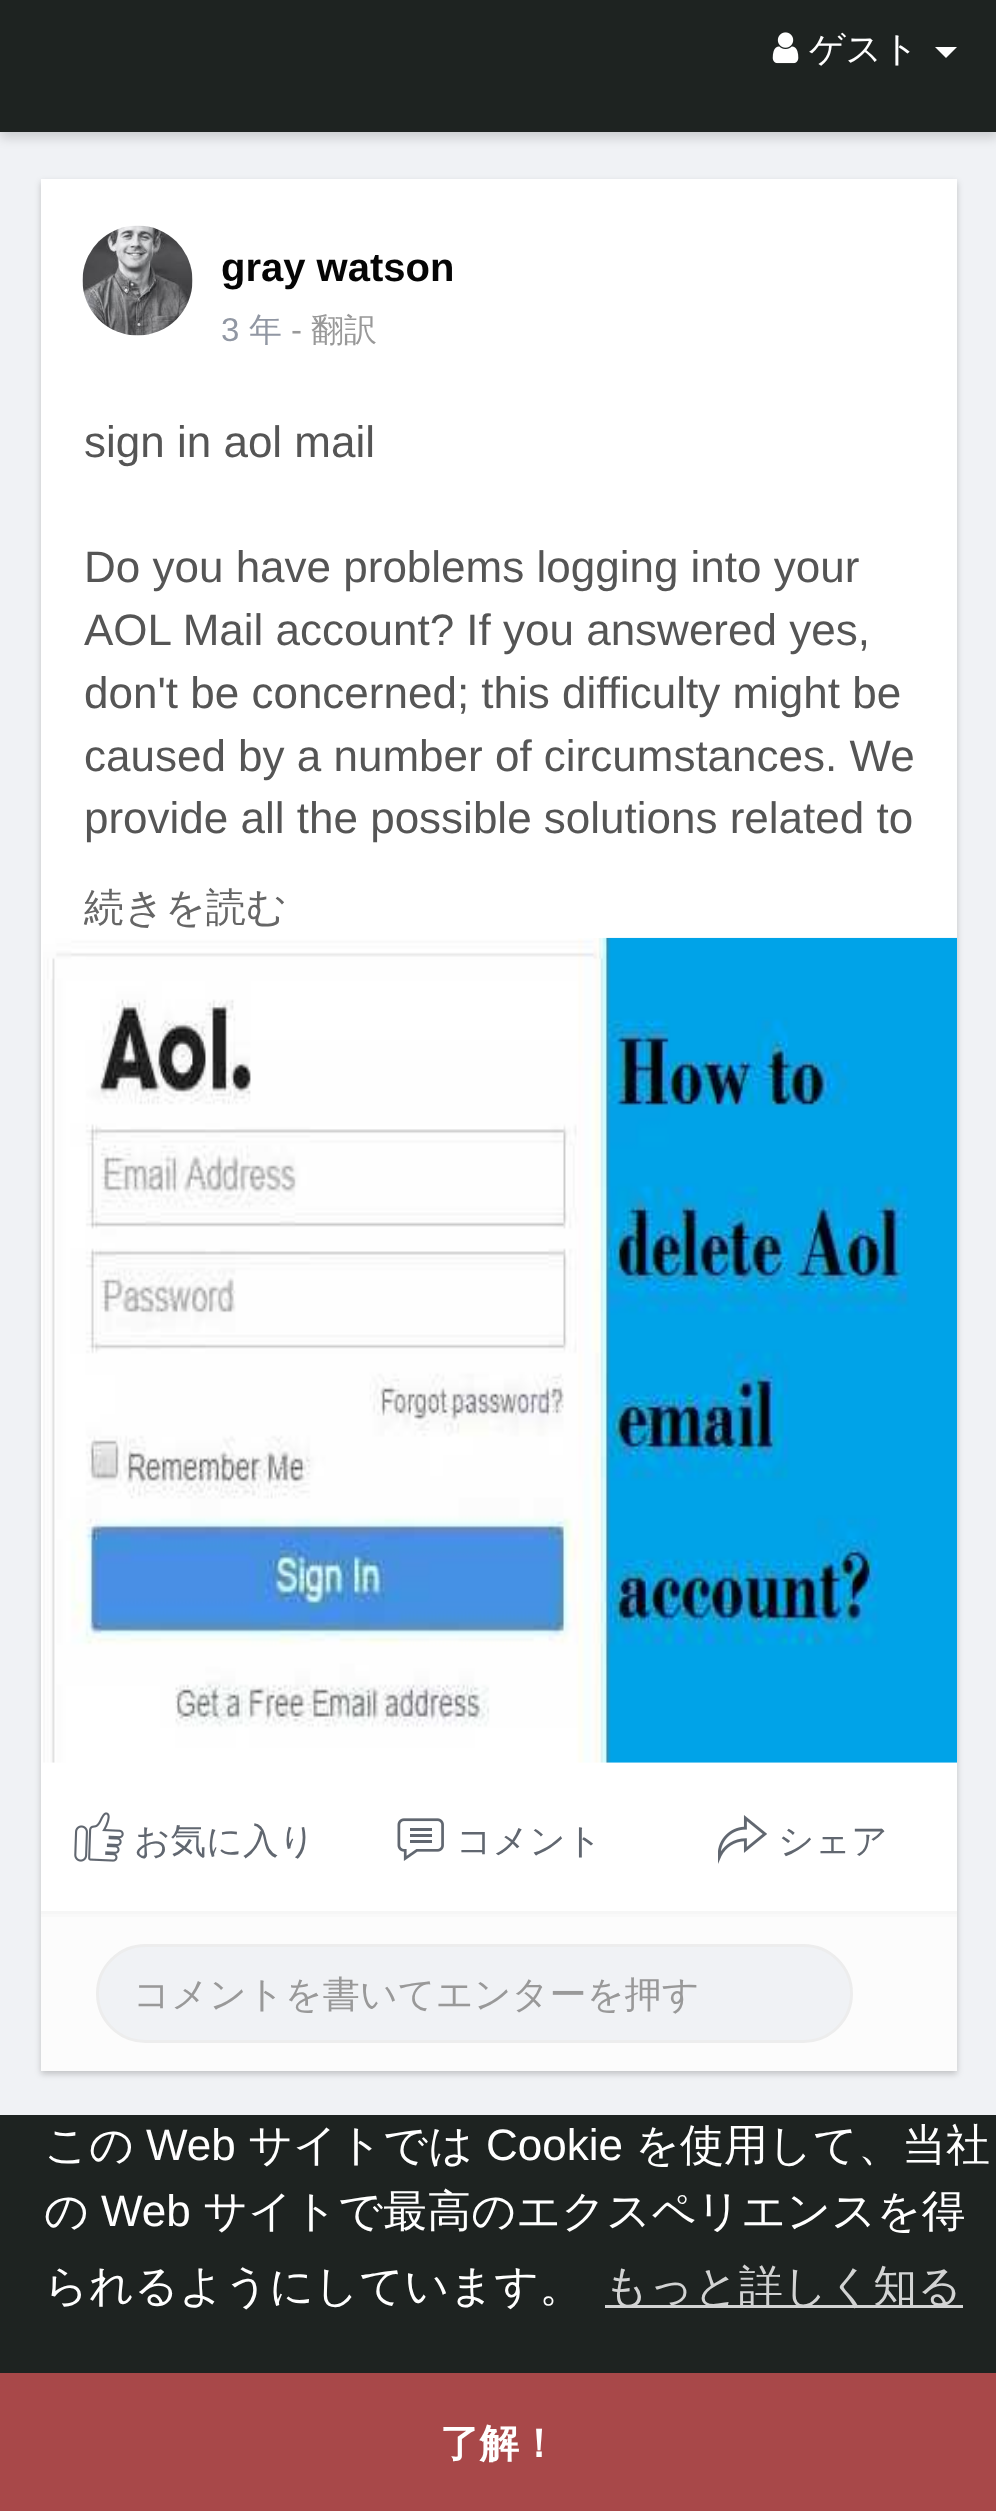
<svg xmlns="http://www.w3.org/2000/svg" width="996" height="2511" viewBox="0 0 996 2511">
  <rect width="100%" height="100%" fill="rgb(240,242,245)"/>
  <rect x="0" y="6" width="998" height="132" fill="rgba(0,0,0,0.15)" filter="blur(5.5px)"/>
  <rect x="0" y="0" width="996" height="132" fill="rgb(30,35,33)"/>
  <image x="772" y="32" width="27" height="32" href="pic1.png"/>
  <text x="809" y="61" font-family="WenQuanYi Zen Hei" font-size="35.75" font-weight="500" fill="rgb(255,255,255)">ゲスト</text>
  <path d="M935 47H957L946 58Z" fill="rgb(255,255,255)"/>
  <rect x="41" y="182" width="916" height="1892" fill="rgba(0,0,0,0.2)" filter="blur(3px)"/>
  <rect x="41" y="179" width="916" height="1732" fill="rgb(255,255,255)"/>
  <image x="82" y="225" width="111" height="111" href="pic2.png"/>
  <text x="221" y="281" font-family="Liberation Sans" font-size="40" font-weight="bold" fill="rgb(5,5,5)">gray watson</text>
  <text x="221" y="341" font-family="Liberation Sans" font-size="33" fill="rgb(145,151,163)">3</text>
  <text x="249" y="341" font-family="WenQuanYi Zen Hei" font-size="33" font-weight="500" fill="rgb(145,151,163)">年</text>
  <text x="291" y="341" font-family="Liberation Sans" font-size="33" fill="rgb(153,153,153)">-</text>
  <text x="311" y="341" font-family="WenQuanYi Zen Hei" font-size="33" font-weight="500" fill="rgb(153,153,153)">翻訳</text>
  <g font-family="Liberation Sans" font-size="44" fill="rgb(85,85,85)">
    <text x="84" y="457">sign in aol mail</text>
    <text>
      <tspan x="84" y="582">Do you have problems logging into your</tspan>
      <tspan x="84" y="645">AOL Mail account? If you answered yes,</tspan>
      <tspan x="84" y="708">don't be concerned; this difficulty might be</tspan>
      <tspan x="84" y="771">caused by a number of circumstances. We</tspan>
      <tspan x="84" y="833">provide all the possible solutions related to</tspan>
    </text>
  </g>
  <text x="84" y="921" font-family="WenQuanYi Zen Hei" font-size="40" font-weight="500" fill="rgb(102,102,102)">続きを読む</text>
  <image x="43" y="937" width="914" height="826" href="pic3.png"/>
  <image x="74" y="1812" width="50" height="50" href="pic4.png"/>
  <text x="134" y="1853" font-family="WenQuanYi Zen Hei" font-size="35.75" font-weight="500" fill="rgb(97,103,112)">お気に入り</text>
  <image x="397" y="1818" width="47" height="43" href="pic5.png"/>
  <text x="456" y="1853" font-family="WenQuanYi Zen Hei" font-size="35.75" font-weight="500" fill="rgb(97,103,112)">コメント</text>
  <image x="718" y="1815" width="49" height="49" href="pic6.png"/>
  <text x="778" y="1853" font-family="WenQuanYi Zen Hei" font-size="35.75" font-weight="500" fill="rgb(97,103,112)">シェア</text>
  <rect x="41" y="1917" width="916" height="154" fill="rgb(252,252,252)"/>
  <rect x="41" y="1911" width="916" height="3" fill="rgb(246,246,246)"/>
  <rect x="41" y="1914" width="916" height="3" fill="rgb(249,249,249)"/>
  <rect x="97.5" y="1945.5" width="754" height="96" rx="48" fill="rgb(240,242,245)" stroke="rgb(237,237,237)" stroke-width="3"/>
  <text x="133" y="2007" font-family="WenQuanYi Zen Hei" font-size="37.1" font-weight="500" fill="rgb(153,153,153)">コメントを書いてエンターを押す</text>
  <rect x="0" y="2115" width="996" height="258" fill="rgb(30,35,33)"/>
  <text x="44" y="2160" font-family="WenQuanYi Zen Hei" font-size="44" font-weight="500" fill="rgb(255,255,255)">この</text>
  <text x="146" y="2160" font-family="Liberation Sans" font-size="44" fill="rgb(255,255,255)">Web</text>
  <text x="248" y="2160" font-family="WenQuanYi Zen Hei" font-size="44" font-weight="500" fill="rgb(255,255,255)">サイトでは</text>
  <text x="486" y="2160" font-family="Liberation Sans" font-size="44" fill="rgb(255,255,255)">Cookie</text>
  <g font-family="WenQuanYi Zen Hei" font-size="44" font-weight="500" fill="rgb(255,255,255)">
    <text x="635" y="2160">を使用して、当社</text>
    <text x="44" y="2226">の</text>
  </g>
  <text x="101" y="2226" font-family="Liberation Sans" font-size="44" fill="rgb(255,255,255)">Web</text>
  <g font-family="WenQuanYi Zen Hei" font-size="44" font-weight="500" fill="rgb(255,255,255)">
    <text x="203" y="2226">サイトで最高のエクスペリエンスを得</text>
    <text x="44" y="2301">られるようにしています。</text>
  </g>
  <rect x="605" y="2305" width="358" height="3" fill="rgb(210,211,211)"/>
  <text x="604" y="2301" font-family="WenQuanYi Zen Hei" font-size="44" font-weight="500" fill="rgb(210,211,211)">もっと詳しく知る</text>
  <rect x="0" y="2373" width="996" height="138" fill="rgb(168,72,73)"/>
  <text x="440" y="2457" font-family="WenQuanYi Zen Hei" font-size="39.5" font-weight="bold" fill="rgb(255,255,255)">了解！</text>
</svg>
